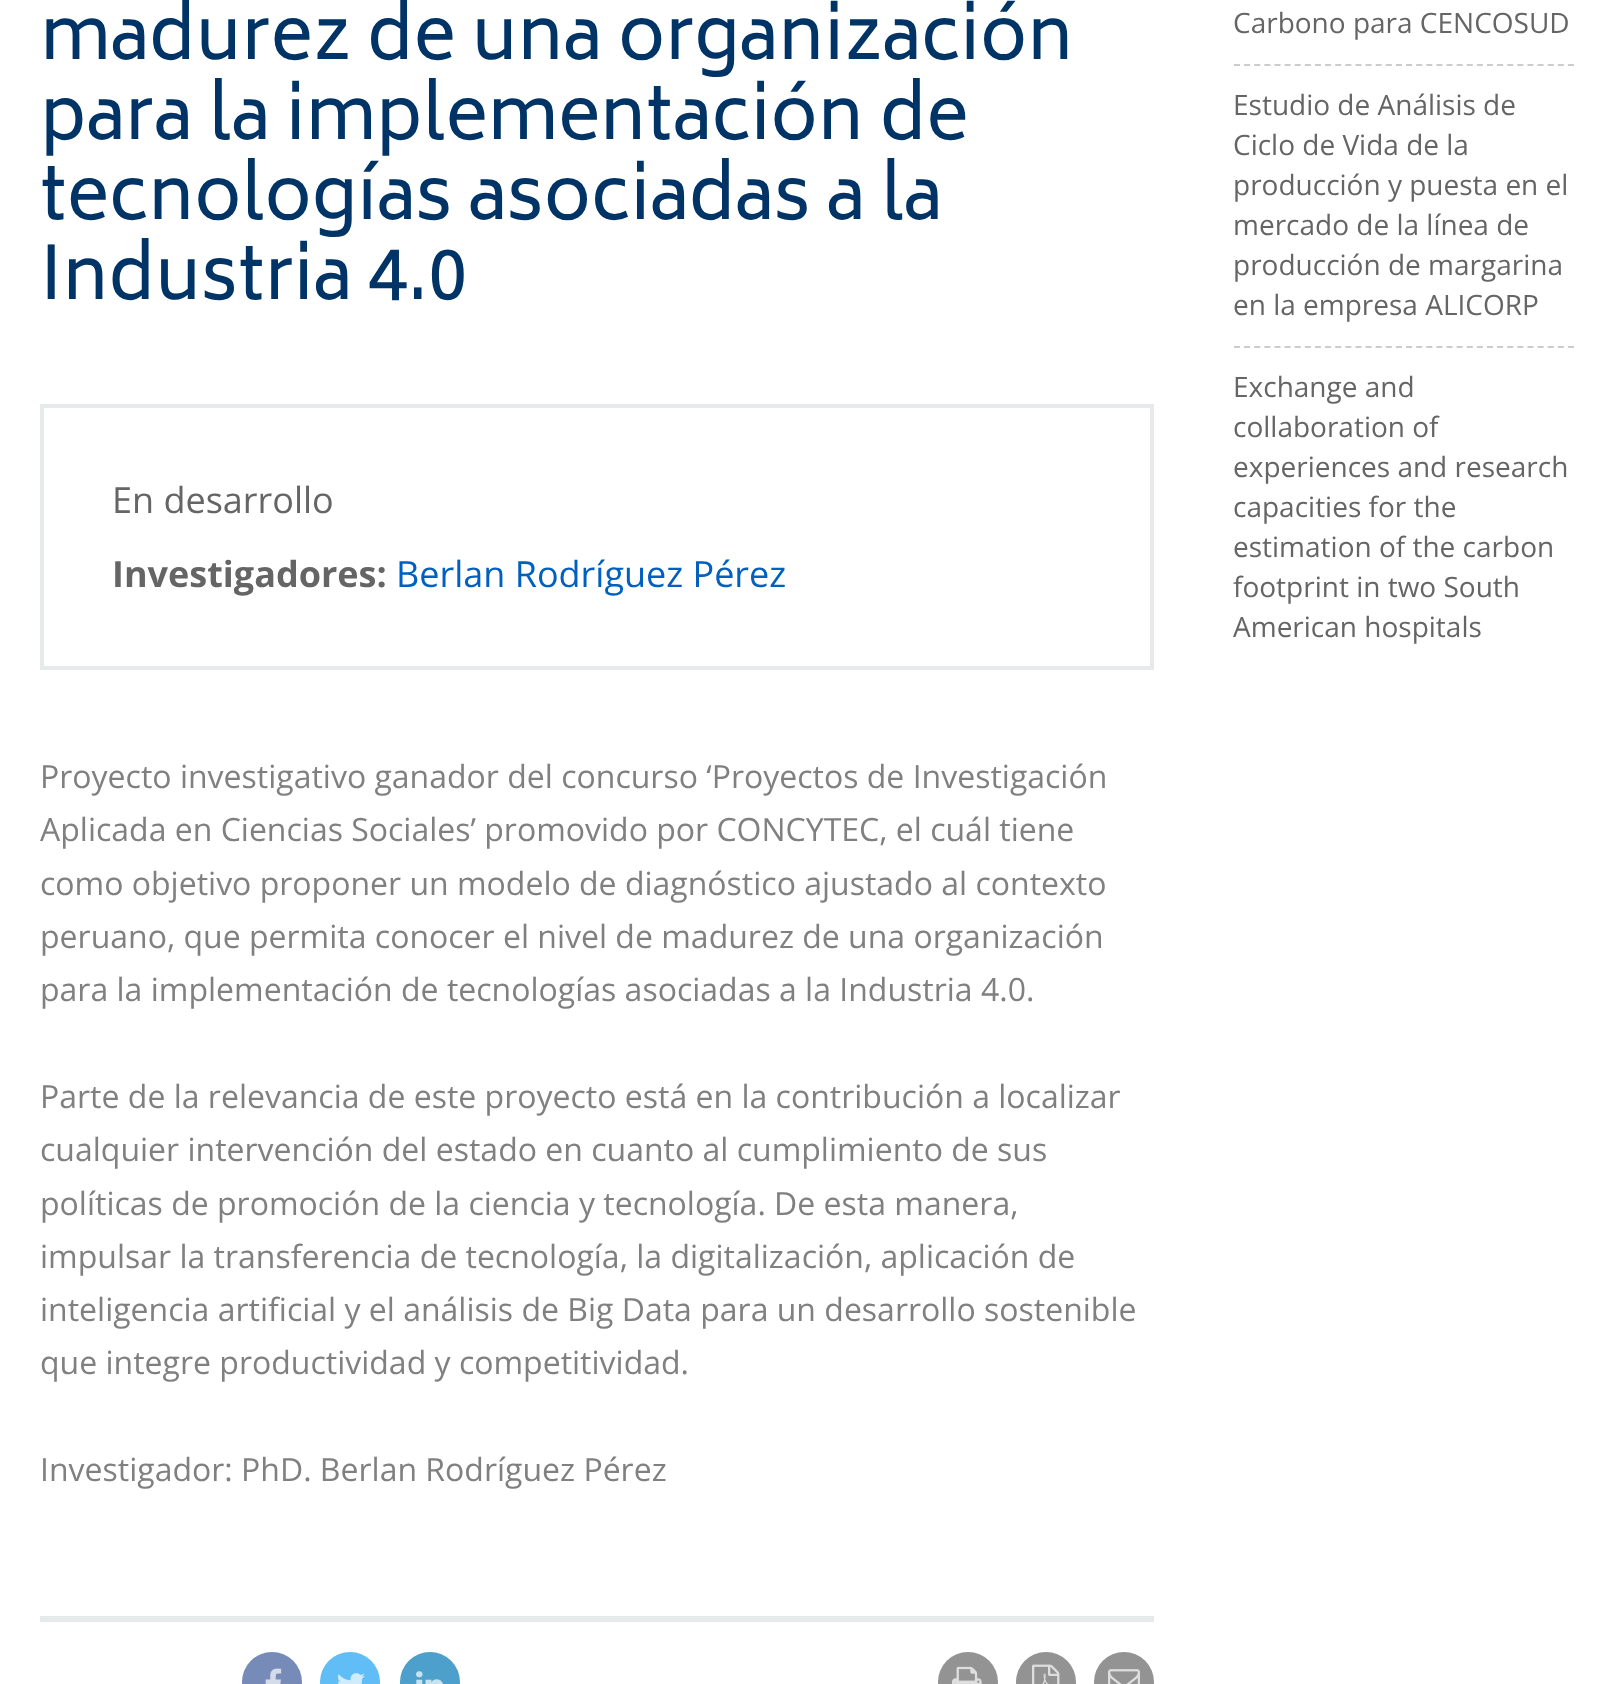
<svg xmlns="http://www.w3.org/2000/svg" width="1613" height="1684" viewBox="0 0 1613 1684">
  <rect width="100%" height="100%" fill="rgb(255,255,255)"/>
  <g font-family="Biryani" font-size="72" fill="rgb(0,51,102)">
    <text>
      <tspan x="40" y="59">madurez de una organización</tspan>
      <tspan x="40" y="139">para la implementación de</tspan>
      <tspan x="40" y="219">tecnologías asociadas a la</tspan>
      <tspan x="40" y="299">Industria 4.0</tspan>
    </text>
  </g>
  <rect x="42" y="406" width="1110" height="262" fill="none" stroke="rgb(231,234,235)" stroke-width="4"/>
  <text x="112" y="513" font-family="Open Sans" font-size="36" fill="rgb(102,101,101)">En desarrollo</text>
  <text x="112" y="587" font-family="Open Sans" font-size="36" font-weight="bold" fill="rgb(102,101,101)">Investigadores:</text>
  <text x="396" y="587" font-family="Open Sans" font-size="36" fill="rgb(0,96,191)">Berlan Rodríguez Pérez</text>
  <g font-family="Open Sans" font-size="32" fill="rgb(128,128,128)">
    <text>
      <tspan x="40" y="788">Proyecto investigativo ganador del concurso ‘Proyectos de Investigación</tspan>
      <tspan x="40" y="841">Aplicada en Ciencias Sociales’ promovido por CONCYTEC, el cuál tiene</tspan>
      <tspan x="40" y="895">como objetivo proponer un modelo de diagnóstico ajustado al contexto</tspan>
      <tspan x="40" y="948">peruano, que permita conocer el nivel de madurez de una organización</tspan>
      <tspan x="40" y="1001">para la implementación de tecnologías asociadas a la Industria 4.0.</tspan>
    </text>
    <text>
      <tspan x="40" y="1108">Parte de la relevancia de este proyecto está en la contribución a localizar</tspan>
      <tspan x="40" y="1161">cualquier intervención del estado en cuanto al cumplimiento de sus</tspan>
      <tspan x="40" y="1215">políticas de promoción de la ciencia y tecnología. De esta manera,</tspan>
      <tspan x="40" y="1268">impulsar la transferencia de tecnología, la digitalización, aplicación de</tspan>
      <tspan x="40" y="1321">inteligencia artificial y el análisis de Big Data para un desarrollo sostenible</tspan>
      <tspan x="40" y="1374">que integre productividad y competitividad.</tspan>
    </text>
    <text x="40" y="1481">Investigador: PhD. Berlan Rodríguez Pérez</text>
  </g>
  <rect x="40" y="1616" width="1114" height="6" fill="rgb(231,234,235)"/>
  <circle cx="272" cy="1682" r="30" fill="rgb(118,139,183)"/>
  <image x="265" y="1668" width="17" height="16" href="pic1.png"/>
  <circle cx="350" cy="1682" r="30" fill="rgb(97,189,246)"/>
  <image x="338" y="1673" width="27" height="11" href="pic2.png"/>
  <circle cx="430" cy="1682" r="30" fill="rgb(77,160,203)"/>
  <image x="416" y="1671" width="27" height="13" href="pic3.png"/>
  <circle cx="968" cy="1682" r="30" fill="rgb(148,147,147)"/>
  <image x="952" y="1666" width="30" height="18" href="pic4.png"/>
  <circle cx="1046" cy="1682" r="30" fill="rgb(148,147,147)"/>
  <image x="1032" y="1664" width="28" height="20" href="pic5.png"/>
  <circle cx="1124" cy="1682" r="30" fill="rgb(148,147,147)"/>
  <image x="1108" y="1669" width="32" height="15" href="pic6.png"/>
  <text x="1233" y="33" font-family="Open Sans" font-size="28" fill="rgb(102,101,101)">Carbono para CENCOSUD</text>
  <path d="M1234 65H1574" fill="none" stroke="rgb(204,204,204)" stroke-width="2" stroke-dasharray="6 4.12"/>
  <g font-family="Open Sans" font-size="28" fill="rgb(102,101,101)">
    <text>
      <tspan x="1233" y="115">Estudio de Análisis de</tspan>
      <tspan x="1233" y="155">Ciclo de Vida de la</tspan>
      <tspan x="1233" y="195">producción y puesta en el</tspan>
      <tspan x="1233" y="235">mercado de la línea de</tspan>
      <tspan x="1233" y="275">producción de margarina</tspan>
      <tspan x="1233" y="315">en la empresa ALICORP</tspan>
    </text>
  </g>
  <path d="M1234 347H1574" fill="none" stroke="rgb(204,204,204)" stroke-width="2" stroke-dasharray="6 4.12"/>
  <g font-family="Open Sans" font-size="28" fill="rgb(102,101,101)">
    <text>
      <tspan x="1233" y="397">Exchange and</tspan>
      <tspan x="1233" y="437">collaboration of</tspan>
      <tspan x="1233" y="477">experiences and research</tspan>
      <tspan x="1233" y="517">capacities for the</tspan>
      <tspan x="1233" y="557">estimation of the carbon</tspan>
      <tspan x="1233" y="597">footprint in two South</tspan>
      <tspan x="1233" y="637">American hospitals</tspan>
    </text>
  </g>
</svg>
